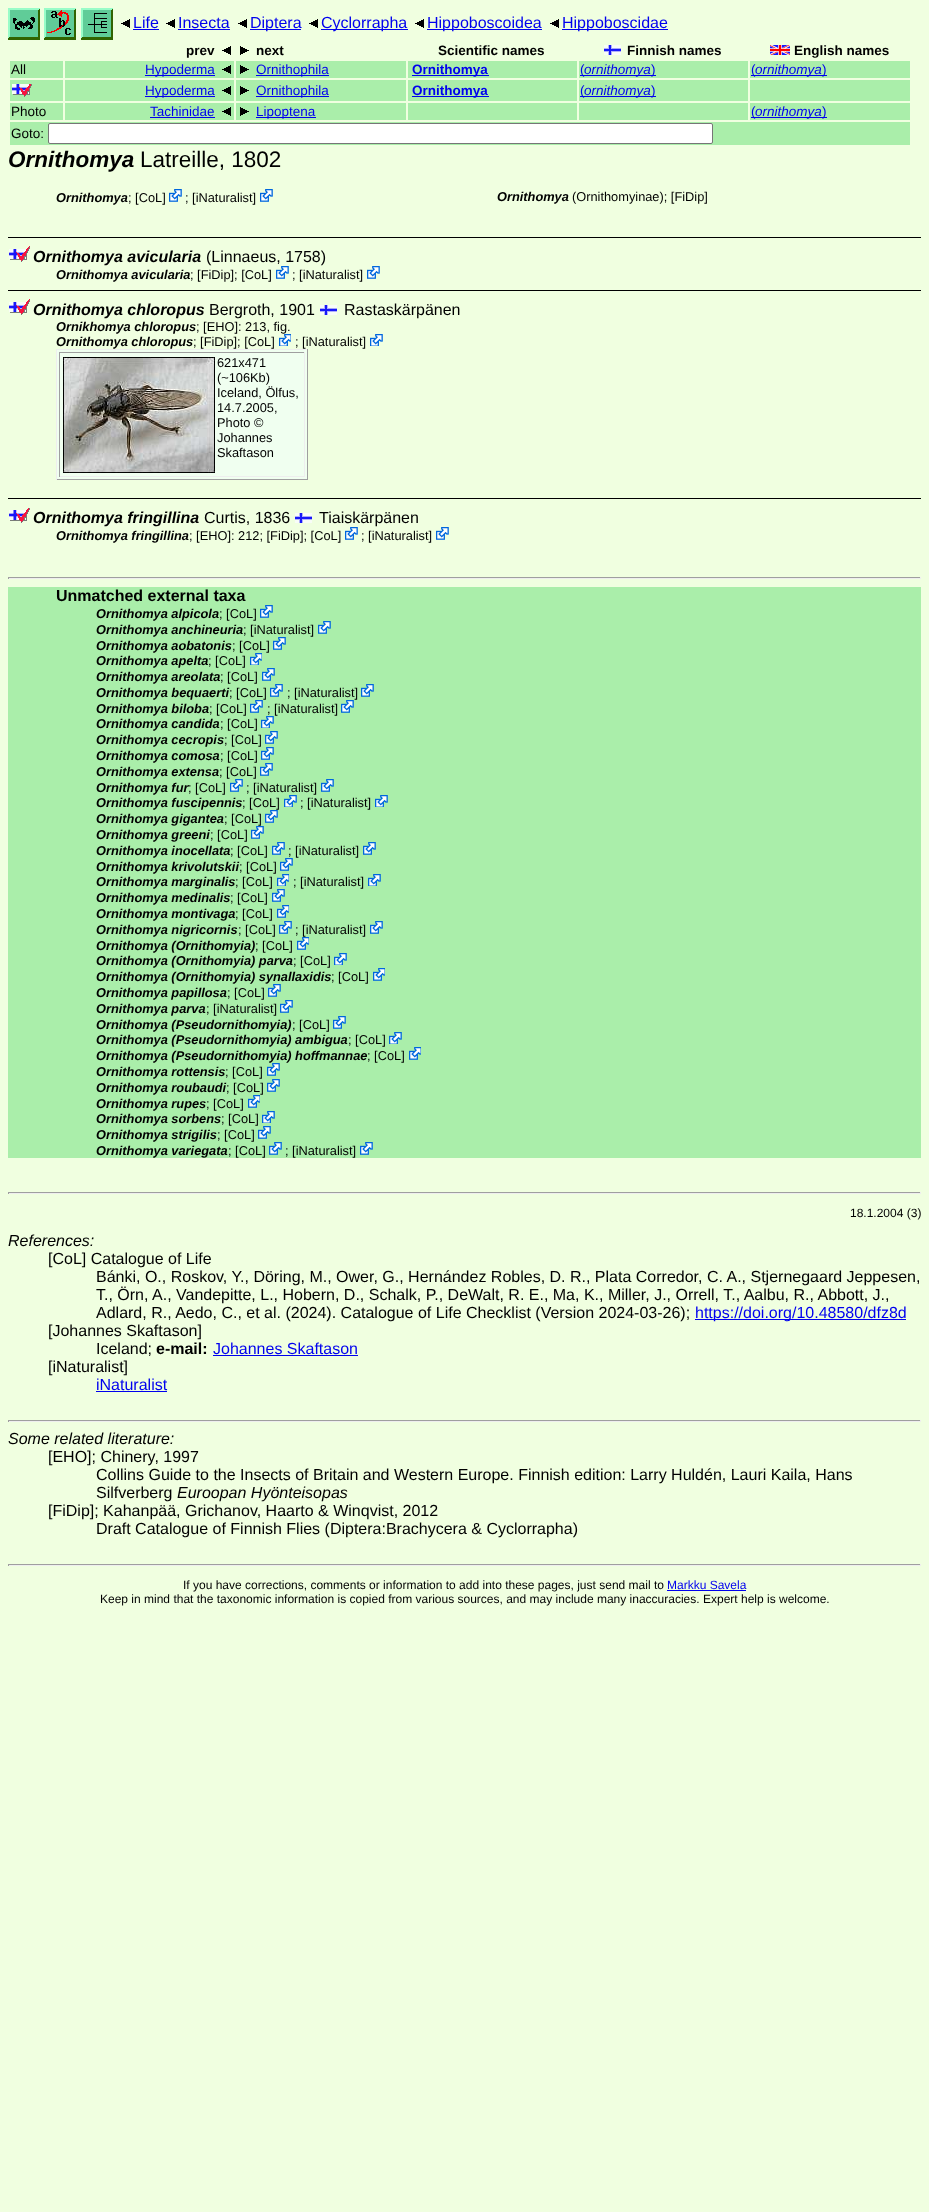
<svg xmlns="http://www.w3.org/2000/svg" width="929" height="2212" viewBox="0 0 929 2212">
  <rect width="100%" height="100%" fill="rgb(240,255,224)"/>
  <image x="8" y="8" width="32" height="32" href="pic1.png"/>
  <image x="44" y="8" width="32" height="32" href="pic2.png"/>
  <image x="81" y="8" width="32" height="32" href="pic3.png"/>
  <image x="121" y="19" width="9" height="9" href="pic4.png"/>
  <text x="133" y="28" font-family="Liberation Sans" font-size="16" fill="rgb(0,0,238)">Life</text>
  <rect x="133" y="29" width="26" height="1" fill="rgb(0,0,238)"/>
  <image x="166" y="19" width="9" height="9" href="pic4.png"/>
  <text x="178" y="28" font-family="Liberation Sans" font-size="16" fill="rgb(0,0,238)">Insecta</text>
  <rect x="178" y="29" width="52" height="1" fill="rgb(0,0,238)"/>
  <image x="238" y="19" width="9" height="9" href="pic4.png"/>
  <rect x="250" y="29" width="51" height="1" fill="rgb(0,0,238)"/>
  <text x="250" y="28" font-family="Liberation Sans" font-size="16" fill="rgb(0,0,238)">Diptera</text>
  <image x="309" y="19" width="9" height="9" href="pic4.png"/>
  <rect x="321" y="29" width="87" height="1" fill="rgb(0,0,238)"/>
  <text x="321" y="28" font-family="Liberation Sans" font-size="16" fill="rgb(0,0,238)">Cyclorrapha</text>
  <image x="415" y="19" width="9" height="9" href="pic4.png"/>
  <rect x="427" y="29" width="115" height="1" fill="rgb(0,0,238)"/>
  <text x="427" y="28" font-family="Liberation Sans" font-size="16" fill="rgb(0,0,238)">Hippoboscoidea</text>
  <image x="550" y="19" width="9" height="9" href="pic4.png"/>
  <rect x="562" y="29" width="106" height="1" fill="rgb(0,0,238)"/>
  <text x="562" y="28" font-family="Liberation Sans" font-size="16" fill="rgb(0,0,238)">Hippoboscidae</text>
  <text x="186" y="55" font-family="Liberation Sans" font-size="13.5" font-weight="bold" fill="rgb(0,0,0)">prev</text>
  <image x="222" y="46" width="9" height="9" href="pic4.png"/>
  <image x="240" y="46" width="9" height="9" href="pic5.png"/>
  <g font-family="Liberation Sans" font-size="13.5" font-weight="bold" fill="rgb(0,0,0)">
    <text x="256" y="55">next</text>
    <text x="438" y="55">Scientific names</text>
  </g>
  <image x="604" y="45" width="17" height="10" href="pic6.png"/>
  <text x="627" y="55" font-family="Liberation Sans" font-size="13.5" font-weight="bold" fill="rgb(0,0,0)">Finnish names</text>
  <image x="770" y="45" width="20" height="10" href="pic7.png"/>
  <text x="794" y="55" font-family="Liberation Sans" font-size="13.5" font-weight="bold" fill="rgb(0,0,0)">English names</text>
  <rect x="10" y="61" width="53" height="17" fill="rgb(170,238,170)"/>
  <text x="11" y="74" font-family="Liberation Sans" font-size="13.5" fill="rgb(0,0,0)">All</text>
  <rect x="65" y="61" width="169" height="17" fill="rgb(170,238,170)"/>
  <rect x="145" y="75" width="70" height="1" fill="rgb(0,0,238)"/>
  <text x="145" y="74" font-family="Liberation Sans" font-size="13.5" fill="rgb(0,0,238)">Hypoderma</text>
  <image x="222" y="65" width="9" height="9" href="pic8.png"/>
  <rect x="236" y="61" width="170" height="17" fill="rgb(170,238,170)"/>
  <image x="240" y="65" width="9" height="9" href="pic9.png"/>
  <rect x="256" y="75" width="73" height="1" fill="rgb(0,0,238)"/>
  <text x="256" y="74" font-family="Liberation Sans" font-size="13.5" fill="rgb(0,0,238)">Ornithophila</text>
  <rect x="408" y="61" width="169" height="17" fill="rgb(170,238,170)"/>
  <rect x="412" y="75" width="77" height="1" fill="rgb(0,0,238)"/>
  <text x="412" y="74" font-family="Liberation Sans" font-size="13.5" font-weight="bold" fill="rgb(0,0,238)">Ornithomya</text>
  <rect x="579" y="61" width="169" height="17" fill="rgb(170,238,170)"/>
  <rect x="580" y="75" width="76" height="1" fill="rgb(0,0,238)"/>
  <text x="580" y="74" font-family="Liberation Sans" font-size="13.5" fill="rgb(0,0,238)">(</text>
  <text x="584" y="74" font-family="Liberation Sans" font-size="13.5" font-style="italic" fill="rgb(0,0,238)">ornithomya</text>
  <text x="651" y="74" font-family="Liberation Sans" font-size="13.5" fill="rgb(0,0,238)">)</text>
  <rect x="750" y="61" width="160" height="17" fill="rgb(170,238,170)"/>
  <rect x="751" y="75" width="4" height="1" fill="rgb(0,0,238)"/>
  <text x="751" y="74" font-family="Liberation Sans" font-size="13.5" fill="rgb(0,0,238)">(</text>
  <rect x="755" y="75" width="72" height="1" fill="rgb(0,0,238)"/>
  <text x="755" y="74" font-family="Liberation Sans" font-size="13.5" font-style="italic" fill="rgb(0,0,238)">ornithomya</text>
  <text x="822" y="74" font-family="Liberation Sans" font-size="13.5" fill="rgb(0,0,238)">)</text>
  <rect x="10" y="80" width="53" height="21" fill="rgb(170,238,170)"/>
  <image x="12" y="84" width="20" height="13" href="pic10.png"/>
  <rect x="65" y="80" width="169" height="21" fill="rgb(170,238,170)"/>
  <rect x="145" y="96" width="70" height="1" fill="rgb(0,0,238)"/>
  <text x="145" y="95" font-family="Liberation Sans" font-size="13.5" fill="rgb(0,0,238)">Hypoderma</text>
  <image x="222" y="86" width="9" height="9" href="pic8.png"/>
  <rect x="236" y="80" width="170" height="21" fill="rgb(170,238,170)"/>
  <image x="240" y="86" width="9" height="9" href="pic9.png"/>
  <rect x="256" y="96" width="73" height="1" fill="rgb(0,0,238)"/>
  <text x="256" y="95" font-family="Liberation Sans" font-size="13.5" fill="rgb(0,0,238)">Ornithophila</text>
  <rect x="408" y="80" width="169" height="21" fill="rgb(170,238,170)"/>
  <rect x="412" y="96" width="77" height="1" fill="rgb(0,0,238)"/>
  <text x="412" y="95" font-family="Liberation Sans" font-size="13.5" font-weight="bold" fill="rgb(0,0,238)">Ornithomya</text>
  <rect x="579" y="80" width="169" height="21" fill="rgb(170,238,170)"/>
  <rect x="580" y="96" width="76" height="1" fill="rgb(0,0,238)"/>
  <text x="580" y="95" font-family="Liberation Sans" font-size="13.5" fill="rgb(0,0,238)">(</text>
  <text x="584" y="95" font-family="Liberation Sans" font-size="13.5" font-style="italic" fill="rgb(0,0,238)">ornithomya</text>
  <text x="651" y="95" font-family="Liberation Sans" font-size="13.5" fill="rgb(0,0,238)">)</text>
  <rect x="750" y="80" width="160" height="21" fill="rgb(170,238,170)"/>
  <rect x="10" y="103" width="53" height="17" fill="rgb(170,238,170)"/>
  <text x="11" y="116" font-family="Liberation Sans" font-size="13.5" fill="rgb(0,0,0)">Photo</text>
  <rect x="65" y="103" width="169" height="17" fill="rgb(170,238,170)"/>
  <text x="150" y="116" font-family="Liberation Sans" font-size="13.5" fill="rgb(0,0,238)">Tachinidae</text>
  <rect x="150" y="117" width="65" height="1" fill="rgb(0,0,238)"/>
  <image x="222" y="107" width="9" height="9" href="pic8.png"/>
  <rect x="236" y="103" width="170" height="17" fill="rgb(170,238,170)"/>
  <image x="240" y="107" width="9" height="9" href="pic9.png"/>
  <rect x="256" y="117" width="60" height="1" fill="rgb(0,0,238)"/>
  <text x="256" y="116" font-family="Liberation Sans" font-size="13.5" fill="rgb(0,0,238)">Lipoptena</text>
  <rect x="408" y="103" width="169" height="17" fill="rgb(170,238,170)"/>
  <rect x="579" y="103" width="169" height="17" fill="rgb(170,238,170)"/>
  <rect x="750" y="103" width="160" height="17" fill="rgb(170,238,170)"/>
  <rect x="751" y="117" width="4" height="1" fill="rgb(0,0,238)"/>
  <text x="751" y="116" font-family="Liberation Sans" font-size="13.5" fill="rgb(0,0,238)">(</text>
  <rect x="755" y="117" width="72" height="1" fill="rgb(0,0,238)"/>
  <text x="755" y="116" font-family="Liberation Sans" font-size="13.5" font-style="italic" fill="rgb(0,0,238)">ornithomya</text>
  <text x="822" y="116" font-family="Liberation Sans" font-size="13.5" fill="rgb(0,0,238)">)</text>
  <rect x="10" y="122" width="900" height="23" fill="rgb(170,238,170)"/>
  <text x="11" y="138" font-family="Liberation Sans" font-size="13.5" fill="rgb(0,0,0)">Goto:</text>
  <rect x="48.5" y="123.5" width="664" height="20" rx="1.5" fill="rgb(255,255,255)" stroke="rgb(118,118,118)"/>
  <text x="8" y="167" font-family="Liberation Sans" font-size="22.5" font-weight="bold" font-style="italic" fill="rgb(0,0,0)">Ornithomya</text>
  <text x="140" y="167" font-family="Liberation Sans" font-size="22.5" fill="rgb(0,0,0)">Latreille, 1802</text>
  <text x="56" y="202" font-family="Liberation Sans" font-size="12.8" font-weight="bold" font-style="italic" fill="rgb(0,0,0)">Ornithomya</text>
  <text x="128" y="202" font-family="Liberation Sans" font-size="12.8" fill="rgb(0,0,0)">; [CoL]</text>
  <image x="169" y="189" width="13" height="13" href="pic11.png"/>
  <text x="185" y="202" font-family="Liberation Sans" font-size="12.8" fill="rgb(0,0,0)">; [iNaturalist]</text>
  <image x="260" y="189" width="13" height="13" href="pic11.png"/>
  <text x="497" y="201" font-family="Liberation Sans" font-size="12.8" font-weight="bold" font-style="italic" fill="rgb(0,0,0)">Ornithomya</text>
  <text x="572" y="201" font-family="Liberation Sans" font-size="12.8" fill="rgb(0,0,0)">(Ornithomyinae); [FiDip]</text>
  <rect x="8" y="237" width="913" height="1" fill="rgb(0,0,0)"/>
  <image x="9" y="246" width="21" height="16" href="pic12.png"/>
  <text x="33" y="262" font-family="Liberation Sans" font-size="16" font-weight="bold" font-style="italic" fill="rgb(0,0,0)">Ornithomya avicularia</text>
  <text x="206" y="262" font-family="Liberation Sans" font-size="16" fill="rgb(0,0,0)">(Linnaeus, 1758)</text>
  <text x="56" y="279" font-family="Liberation Sans" font-size="12.8" font-weight="bold" font-style="italic" fill="rgb(0,0,0)">Ornithomya avicularia</text>
  <text x="190" y="279" font-family="Liberation Sans" font-size="12.8" fill="rgb(0,0,0)">; [FiDip]; [CoL]</text>
  <image x="276" y="266" width="13" height="13" href="pic11.png"/>
  <text x="292" y="279" font-family="Liberation Sans" font-size="12.8" fill="rgb(0,0,0)">; [iNaturalist]</text>
  <image x="367" y="266" width="13" height="13" href="pic11.png"/>
  <rect x="8" y="290" width="913" height="1" fill="rgb(0,0,0)"/>
  <image x="9" y="299" width="21" height="16" href="pic12.png"/>
  <text x="33" y="315" font-family="Liberation Sans" font-size="16" font-weight="bold" font-style="italic" fill="rgb(0,0,0)">Ornithomya chloropus</text>
  <text x="209" y="315" font-family="Liberation Sans" font-size="16" fill="rgb(0,0,0)">Bergroth, 1901</text>
  <image x="320" y="305" width="17" height="10" href="pic6.png"/>
  <text x="344" y="315" font-family="Liberation Sans" font-size="16" fill="rgb(0,0,0)">Rastaskärpänen</text>
  <text x="56" y="331" font-family="Liberation Sans" font-size="12.8" font-weight="bold" font-style="italic" fill="rgb(0,0,0)">Ornikhomya chloropus</text>
  <text x="196" y="331" font-family="Liberation Sans" font-size="12.8" fill="rgb(0,0,0)">; [EHO]: 213, fig.</text>
  <text x="56" y="346" font-family="Liberation Sans" font-size="12.8" font-weight="bold" font-style="italic" fill="rgb(0,0,0)">Ornithomya chloropus</text>
  <text x="193" y="346" font-family="Liberation Sans" font-size="12.8" fill="rgb(0,0,0)">; [FiDip]; [CoL]</text>
  <image x="279" y="334" width="12" height="12" href="pic13.png"/>
  <text x="295" y="346" font-family="Liberation Sans" font-size="12.8" fill="rgb(0,0,0)">; [iNaturalist]</text>
  <image x="370" y="334" width="13" height="12" href="pic14.png"/>
  <rect x="57" y="350" width="250" height="129" fill="rgb(240,255,240)"/>
  <rect x="56" y="349" width="252" height="1" fill="rgb(238,238,238)"/>
  <rect x="307" y="349" width="1" height="131" fill="rgb(159,159,159)"/>
  <rect x="56" y="479" width="252" height="1" fill="rgb(159,159,159)"/>
  <rect x="56" y="349" width="1" height="131" fill="rgb(238,238,238)"/>
  <rect x="59" y="352" width="246" height="1" fill="rgb(159,159,159)"/>
  <rect x="304" y="352" width="1" height="125" fill="rgb(238,238,238)"/>
  <rect x="59" y="476" width="246" height="1" fill="rgb(238,238,238)"/>
  <rect x="59" y="352" width="1" height="125" fill="rgb(159,159,159)"/>
  <image x="63" y="357" width="152" height="116" href="pic15.png"/>
  <g font-family="Liberation Sans" font-size="12.8" fill="rgb(0,0,0)">
    <text>
      <tspan x="217" y="367">621x471</tspan>
      <tspan x="217" y="382">(~106Kb)</tspan>
      <tspan x="217" y="397">Iceland, Ölfus,</tspan>
      <tspan x="217" y="412">14.7.2005,</tspan>
      <tspan x="217" y="427">Photo ©</tspan>
      <tspan x="217" y="442">Johannes</tspan>
      <tspan x="217" y="457">Skaftason</tspan>
    </text>
  </g>
  <rect x="8" y="498" width="913" height="1" fill="rgb(0,0,0)"/>
  <image x="9" y="508" width="21" height="15" href="pic16.png"/>
  <text x="33" y="523" font-family="Liberation Sans" font-size="16" font-weight="bold" font-style="italic" fill="rgb(0,0,0)">Ornithomya fringillina</text>
  <text x="204" y="523" font-family="Liberation Sans" font-size="16" fill="rgb(0,0,0)">Curtis, 1836</text>
  <image x="295" y="513" width="17" height="10" href="pic6.png"/>
  <text x="319" y="523" font-family="Liberation Sans" font-size="16" fill="rgb(0,0,0)">Tiaiskärpänen</text>
  <text x="56" y="540" font-family="Liberation Sans" font-size="12.8" font-weight="bold" font-style="italic" fill="rgb(0,0,0)">Ornithomya fringillina</text>
  <text x="189" y="540" font-family="Liberation Sans" font-size="12.8" fill="rgb(0,0,0)">; [EHO]: 212; [FiDip]; [CoL]</text>
  <image x="345" y="527" width="13" height="13" href="pic11.png"/>
  <text x="361" y="540" font-family="Liberation Sans" font-size="12.8" fill="rgb(0,0,0)">; [iNaturalist]</text>
  <image x="436" y="527" width="13" height="13" href="pic11.png"/>
  <rect x="8" y="577" width="913" height="1" fill="rgb(159,159,159)"/>
  <rect x="920" y="577" width="1" height="2" fill="rgb(238,238,238)"/>
  <rect x="8" y="578" width="913" height="1" fill="rgb(238,238,238)"/>
  <rect x="8" y="577" width="1" height="2" fill="rgb(159,159,159)"/>
  <rect x="8" y="587" width="913" height="571" fill="rgb(170,238,170)"/>
  <text x="56" y="601" font-family="Liberation Sans" font-size="16" font-weight="bold" fill="rgb(0,0,0)">Unmatched external taxa</text>
  <text x="96" y="618" font-family="Liberation Sans" font-size="12.8" font-weight="bold" font-style="italic" fill="rgb(0,0,0)">Ornithomya alpicola</text>
  <text x="219" y="618" font-family="Liberation Sans" font-size="12.8" fill="rgb(0,0,0)">; [CoL]</text>
  <image x="260" y="605" width="13" height="13" href="pic17.png"/>
  <text x="96" y="634" font-family="Liberation Sans" font-size="12.8" font-weight="bold" font-style="italic" fill="rgb(0,0,0)">Ornithomya anchineuria</text>
  <text x="243" y="634" font-family="Liberation Sans" font-size="12.8" fill="rgb(0,0,0)">; [iNaturalist]</text>
  <image x="318" y="621" width="13" height="13" href="pic17.png"/>
  <text x="96" y="650" font-family="Liberation Sans" font-size="12.8" font-weight="bold" font-style="italic" fill="rgb(0,0,0)">Ornithomya aobatonis</text>
  <text x="232" y="650" font-family="Liberation Sans" font-size="12.8" fill="rgb(0,0,0)">; [CoL]</text>
  <image x="273" y="637" width="13" height="13" href="pic17.png"/>
  <text x="96" y="665" font-family="Liberation Sans" font-size="12.8" font-weight="bold" font-style="italic" fill="rgb(0,0,0)">Ornithomya apelta</text>
  <text x="208" y="665" font-family="Liberation Sans" font-size="12.8" fill="rgb(0,0,0)">; [CoL]</text>
  <image x="250" y="653" width="12" height="12" href="pic18.png"/>
  <text x="96" y="681" font-family="Liberation Sans" font-size="12.8" font-weight="bold" font-style="italic" fill="rgb(0,0,0)">Ornithomya areolata</text>
  <text x="220" y="681" font-family="Liberation Sans" font-size="12.8" fill="rgb(0,0,0)">; [CoL]</text>
  <image x="262" y="668" width="13" height="13" href="pic17.png"/>
  <text x="96" y="697" font-family="Liberation Sans" font-size="12.8" font-weight="bold" font-style="italic" fill="rgb(0,0,0)">Ornithomya bequaerti</text>
  <text x="229" y="697" font-family="Liberation Sans" font-size="12.8" fill="rgb(0,0,0)">; [CoL]</text>
  <image x="270" y="684" width="13" height="13" href="pic17.png"/>
  <text x="287" y="697" font-family="Liberation Sans" font-size="12.8" fill="rgb(0,0,0)">; [iNaturalist]</text>
  <image x="361" y="684" width="13" height="13" href="pic17.png"/>
  <text x="96" y="713" font-family="Liberation Sans" font-size="12.8" font-weight="bold" font-style="italic" fill="rgb(0,0,0)">Ornithomya biloba</text>
  <text x="209" y="713" font-family="Liberation Sans" font-size="12.8" fill="rgb(0,0,0)">; [CoL]</text>
  <image x="250" y="700" width="13" height="13" href="pic17.png"/>
  <text x="267" y="713" font-family="Liberation Sans" font-size="12.8" fill="rgb(0,0,0)">; [iNaturalist]</text>
  <image x="341" y="700" width="13" height="13" href="pic17.png"/>
  <text x="96" y="728" font-family="Liberation Sans" font-size="12.8" font-weight="bold" font-style="italic" fill="rgb(0,0,0)">Ornithomya candida</text>
  <text x="220" y="728" font-family="Liberation Sans" font-size="12.8" fill="rgb(0,0,0)">; [CoL]</text>
  <image x="261" y="716" width="13" height="12" href="pic19.png"/>
  <text x="96" y="744" font-family="Liberation Sans" font-size="12.8" font-weight="bold" font-style="italic" fill="rgb(0,0,0)">Ornithomya cecropis</text>
  <text x="224" y="744" font-family="Liberation Sans" font-size="12.8" fill="rgb(0,0,0)">; [CoL]</text>
  <image x="265" y="731" width="13" height="13" href="pic17.png"/>
  <text x="96" y="760" font-family="Liberation Sans" font-size="12.8" font-weight="bold" font-style="italic" fill="rgb(0,0,0)">Ornithomya comosa</text>
  <text x="220" y="760" font-family="Liberation Sans" font-size="12.8" fill="rgb(0,0,0)">; [CoL]</text>
  <image x="261" y="747" width="13" height="13" href="pic17.png"/>
  <text x="96" y="776" font-family="Liberation Sans" font-size="12.8" font-weight="bold" font-style="italic" fill="rgb(0,0,0)">Ornithomya extensa</text>
  <text x="219" y="776" font-family="Liberation Sans" font-size="12.8" fill="rgb(0,0,0)">; [CoL]</text>
  <image x="260" y="763" width="13" height="13" href="pic17.png"/>
  <text x="96" y="792" font-family="Liberation Sans" font-size="12.8" font-weight="bold" font-style="italic" fill="rgb(0,0,0)">Ornithomya fur</text>
  <text x="188" y="792" font-family="Liberation Sans" font-size="12.8" fill="rgb(0,0,0)">; [CoL]</text>
  <image x="230" y="779" width="13" height="13" href="pic17.png"/>
  <text x="246" y="792" font-family="Liberation Sans" font-size="12.8" fill="rgb(0,0,0)">; [iNaturalist]</text>
  <image x="321" y="779" width="13" height="13" href="pic17.png"/>
  <text x="96" y="807" font-family="Liberation Sans" font-size="12.8" font-weight="bold" font-style="italic" fill="rgb(0,0,0)">Ornithomya fuscipennis</text>
  <text x="242" y="807" font-family="Liberation Sans" font-size="12.8" fill="rgb(0,0,0)">; [CoL]</text>
  <image x="284" y="795" width="13" height="12" href="pic19.png"/>
  <text x="300" y="807" font-family="Liberation Sans" font-size="12.8" fill="rgb(0,0,0)">; [iNaturalist]</text>
  <image x="375" y="795" width="13" height="12" href="pic19.png"/>
  <text x="96" y="823" font-family="Liberation Sans" font-size="12.8" font-weight="bold" font-style="italic" fill="rgb(0,0,0)">Ornithomya gigantea</text>
  <text x="224" y="823" font-family="Liberation Sans" font-size="12.8" fill="rgb(0,0,0)">; [CoL]</text>
  <image x="265" y="810" width="13" height="13" href="pic17.png"/>
  <text x="96" y="839" font-family="Liberation Sans" font-size="12.8" font-weight="bold" font-style="italic" fill="rgb(0,0,0)">Ornithomya greeni</text>
  <text x="210" y="839" font-family="Liberation Sans" font-size="12.8" fill="rgb(0,0,0)">; [CoL]</text>
  <image x="251" y="826" width="13" height="13" href="pic17.png"/>
  <text x="96" y="855" font-family="Liberation Sans" font-size="12.8" font-weight="bold" font-style="italic" fill="rgb(0,0,0)">Ornithomya inocellata</text>
  <text x="230" y="855" font-family="Liberation Sans" font-size="12.8" fill="rgb(0,0,0)">; [CoL]</text>
  <image x="272" y="842" width="13" height="13" href="pic17.png"/>
  <text x="288" y="855" font-family="Liberation Sans" font-size="12.8" fill="rgb(0,0,0)">; [iNaturalist]</text>
  <image x="363" y="842" width="13" height="13" href="pic17.png"/>
  <text x="96" y="871" font-family="Liberation Sans" font-size="12.8" font-weight="bold" font-style="italic" fill="rgb(0,0,0)">Ornithomya krivolutskii</text>
  <text x="239" y="871" font-family="Liberation Sans" font-size="12.8" fill="rgb(0,0,0)">; [CoL]</text>
  <image x="280" y="858" width="13" height="13" href="pic17.png"/>
  <text x="96" y="886" font-family="Liberation Sans" font-size="12.8" font-weight="bold" font-style="italic" fill="rgb(0,0,0)">Ornithomya marginalis</text>
  <text x="235" y="886" font-family="Liberation Sans" font-size="12.8" fill="rgb(0,0,0)">; [CoL]</text>
  <image x="277" y="874" width="12" height="12" href="pic18.png"/>
  <text x="293" y="886" font-family="Liberation Sans" font-size="12.8" fill="rgb(0,0,0)">; [iNaturalist]</text>
  <image x="368" y="874" width="13" height="12" href="pic19.png"/>
  <text x="96" y="902" font-family="Liberation Sans" font-size="12.8" font-weight="bold" font-style="italic" fill="rgb(0,0,0)">Ornithomya medinalis</text>
  <text x="230" y="902" font-family="Liberation Sans" font-size="12.8" fill="rgb(0,0,0)">; [CoL]</text>
  <image x="272" y="889" width="13" height="13" href="pic17.png"/>
  <text x="96" y="918" font-family="Liberation Sans" font-size="12.8" font-weight="bold" font-style="italic" fill="rgb(0,0,0)">Ornithomya montivaga</text>
  <text x="235" y="918" font-family="Liberation Sans" font-size="12.8" fill="rgb(0,0,0)">; [CoL]</text>
  <image x="277" y="905" width="12" height="13" href="pic20.png"/>
  <text x="96" y="934" font-family="Liberation Sans" font-size="12.8" font-weight="bold" font-style="italic" fill="rgb(0,0,0)">Ornithomya nigricornis</text>
  <text x="238" y="934" font-family="Liberation Sans" font-size="12.8" fill="rgb(0,0,0)">; [CoL]</text>
  <image x="279" y="921" width="13" height="13" href="pic17.png"/>
  <text x="295" y="934" font-family="Liberation Sans" font-size="12.8" fill="rgb(0,0,0)">; [iNaturalist]</text>
  <image x="370" y="921" width="13" height="13" href="pic17.png"/>
  <text x="96" y="950" font-family="Liberation Sans" font-size="12.8" font-weight="bold" font-style="italic" fill="rgb(0,0,0)">Ornithomya (Ornithomyia)</text>
  <text x="255" y="950" font-family="Liberation Sans" font-size="12.8" fill="rgb(0,0,0)">; [CoL]</text>
  <image x="297" y="937" width="12" height="13" href="pic20.png"/>
  <text x="96" y="965" font-family="Liberation Sans" font-size="12.8" font-weight="bold" font-style="italic" fill="rgb(0,0,0)">Ornithomya (Ornithomyia) parva</text>
  <text x="293" y="965" font-family="Liberation Sans" font-size="12.8" fill="rgb(0,0,0)">; [CoL]</text>
  <image x="334" y="953" width="13" height="12" href="pic19.png"/>
  <text x="96" y="981" font-family="Liberation Sans" font-size="12.8" font-weight="bold" font-style="italic" fill="rgb(0,0,0)">Ornithomya (Ornithomyia) synallaxidis</text>
  <text x="331" y="981" font-family="Liberation Sans" font-size="12.8" fill="rgb(0,0,0)">; [CoL]</text>
  <image x="373" y="968" width="12" height="13" href="pic20.png"/>
  <text x="96" y="997" font-family="Liberation Sans" font-size="12.8" font-weight="bold" font-style="italic" fill="rgb(0,0,0)">Ornithomya papillosa</text>
  <text x="227" y="997" font-family="Liberation Sans" font-size="12.8" fill="rgb(0,0,0)">; [CoL]</text>
  <image x="268" y="984" width="13" height="13" href="pic17.png"/>
  <text x="96" y="1013" font-family="Liberation Sans" font-size="12.8" font-weight="bold" font-style="italic" fill="rgb(0,0,0)">Ornithomya parva</text>
  <text x="206" y="1013" font-family="Liberation Sans" font-size="12.8" fill="rgb(0,0,0)">; [iNaturalist]</text>
  <image x="280" y="1000" width="13" height="13" href="pic17.png"/>
  <text x="96" y="1029" font-family="Liberation Sans" font-size="12.8" font-weight="bold" font-style="italic" fill="rgb(0,0,0)">Ornithomya (Pseudornithomyia)</text>
  <text x="292" y="1029" font-family="Liberation Sans" font-size="12.8" fill="rgb(0,0,0)">; [CoL]</text>
  <image x="333" y="1016" width="13" height="13" href="pic17.png"/>
  <text x="96" y="1044" font-family="Liberation Sans" font-size="12.8" font-weight="bold" font-style="italic" fill="rgb(0,0,0)">Ornithomya (Pseudornithomyia) ambigua</text>
  <text x="348" y="1044" font-family="Liberation Sans" font-size="12.8" fill="rgb(0,0,0)">; [CoL]</text>
  <image x="389" y="1032" width="13" height="12" href="pic19.png"/>
  <text x="96" y="1060" font-family="Liberation Sans" font-size="12.8" font-weight="bold" font-style="italic" fill="rgb(0,0,0)">Ornithomya (Pseudornithomyia) hoffmannae</text>
  <text x="367" y="1060" font-family="Liberation Sans" font-size="12.8" fill="rgb(0,0,0)">; [CoL]</text>
  <image x="409" y="1047" width="12" height="13" href="pic20.png"/>
  <text x="96" y="1076" font-family="Liberation Sans" font-size="12.8" font-weight="bold" font-style="italic" fill="rgb(0,0,0)">Ornithomya rottensis</text>
  <text x="225" y="1076" font-family="Liberation Sans" font-size="12.8" fill="rgb(0,0,0)">; [CoL]</text>
  <image x="267" y="1063" width="13" height="13" href="pic17.png"/>
  <text x="96" y="1092" font-family="Liberation Sans" font-size="12.8" font-weight="bold" font-style="italic" fill="rgb(0,0,0)">Ornithomya roubaudi</text>
  <text x="226" y="1092" font-family="Liberation Sans" font-size="12.8" fill="rgb(0,0,0)">; [CoL]</text>
  <image x="267" y="1079" width="13" height="13" href="pic17.png"/>
  <text x="96" y="1108" font-family="Liberation Sans" font-size="12.8" font-weight="bold" font-style="italic" fill="rgb(0,0,0)">Ornithomya rupes</text>
  <text x="206" y="1108" font-family="Liberation Sans" font-size="12.8" fill="rgb(0,0,0)">; [CoL]</text>
  <image x="248" y="1095" width="12" height="13" href="pic20.png"/>
  <text x="96" y="1123" font-family="Liberation Sans" font-size="12.8" font-weight="bold" font-style="italic" fill="rgb(0,0,0)">Ornithomya sorbens</text>
  <text x="221" y="1123" font-family="Liberation Sans" font-size="12.8" fill="rgb(0,0,0)">; [CoL]</text>
  <image x="262" y="1111" width="13" height="12" href="pic19.png"/>
  <text x="96" y="1139" font-family="Liberation Sans" font-size="12.8" font-weight="bold" font-style="italic" fill="rgb(0,0,0)">Ornithomya strigilis</text>
  <text x="217" y="1139" font-family="Liberation Sans" font-size="12.8" fill="rgb(0,0,0)">; [CoL]</text>
  <image x="258" y="1126" width="13" height="13" href="pic17.png"/>
  <text x="96" y="1155" font-family="Liberation Sans" font-size="12.8" font-weight="bold" font-style="italic" fill="rgb(0,0,0)">Ornithomya variegata</text>
  <text x="228" y="1155" font-family="Liberation Sans" font-size="12.8" fill="rgb(0,0,0)">; [CoL]</text>
  <image x="269" y="1142" width="13" height="13" href="pic17.png"/>
  <text x="285" y="1155" font-family="Liberation Sans" font-size="12.8" fill="rgb(0,0,0)">; [iNaturalist]</text>
  <image x="360" y="1142" width="13" height="13" href="pic17.png"/>
  <rect x="8" y="1192" width="913" height="1" fill="rgb(159,159,159)"/>
  <rect x="920" y="1192" width="1" height="2" fill="rgb(238,238,238)"/>
  <rect x="8" y="1193" width="913" height="1" fill="rgb(238,238,238)"/>
  <rect x="8" y="1192" width="1" height="2" fill="rgb(159,159,159)"/>
  <text x="850" y="1217" font-family="Liberation Sans" font-size="12" fill="rgb(0,0,0)">18.1.2004 (3)</text>
  <text x="8" y="1246" font-family="Liberation Sans" font-size="16" font-style="italic" fill="rgb(0,0,0)">References:</text>
  <g font-family="Liberation Sans" font-size="16" fill="rgb(0,0,0)">
    <text x="48" y="1264">[CoL] Catalogue of Life</text>
    <text>
      <tspan x="96" y="1282">Bánki, O., Roskov, Y., Döring, M., Ower, G., Hernández Robles, D. R., Plata Corredor, C. A., Stjernegaard Jeppesen,</tspan>
      <tspan x="96" y="1300">T., Örn, A., Vandepitte, L., Hobern, D., Schalk, P., DeWalt, R. E., Ma, K., Miller, J., Orrell, T., Aalbu, R., Abbott, J.,</tspan>
      <tspan x="96" y="1318">Adlard, R., Aedo, C., et al. (2024). Catalogue of Life Checklist (Version 2024-03-26);</tspan>
    </text>
  </g>
  <rect x="695" y="1319" width="211" height="1" fill="rgb(0,0,238)"/>
  <text x="695" y="1318" font-family="Liberation Sans" font-size="16" fill="rgb(0,0,238)">https://doi.org/10.48580/dfz8d</text>
  <g font-family="Liberation Sans" font-size="16" fill="rgb(0,0,0)">
    <text x="48" y="1336">[Johannes Skaftason]</text>
    <text x="96" y="1354">Iceland;</text>
  </g>
  <text x="156" y="1354" font-family="Liberation Sans" font-size="16" font-weight="bold" fill="rgb(0,0,0)">e-mail:</text>
  <text x="213" y="1354" font-family="Liberation Sans" font-size="16" fill="rgb(0,0,238)">Johannes Skaftason</text>
  <rect x="213" y="1355" width="145" height="1" fill="rgb(0,0,238)"/>
  <text x="48" y="1372" font-family="Liberation Sans" font-size="16" fill="rgb(0,0,0)">[iNaturalist]</text>
  <text x="96" y="1390" font-family="Liberation Sans" font-size="16" fill="rgb(0,0,238)">iNaturalist</text>
  <rect x="96" y="1391" width="71" height="1" fill="rgb(0,0,238)"/>
  <rect x="8" y="1420" width="913" height="1" fill="rgb(159,159,159)"/>
  <rect x="920" y="1420" width="1" height="2" fill="rgb(238,238,238)"/>
  <rect x="8" y="1421" width="913" height="1" fill="rgb(238,238,238)"/>
  <rect x="8" y="1420" width="1" height="2" fill="rgb(159,159,159)"/>
  <text x="8" y="1444" font-family="Liberation Sans" font-size="16" font-style="italic" fill="rgb(0,0,0)">Some related literature:</text>
  <g font-family="Liberation Sans" font-size="16" fill="rgb(0,0,0)">
    <text x="48" y="1462">[EHO]; Chinery, 1997</text>
    <text>
      <tspan x="96" y="1480">Collins Guide to the Insects of Britain and Western Europe. Finnish edition: Larry Huldén, Lauri Kaila, Hans</tspan>
      <tspan x="96" y="1498">Silfverberg</tspan>
    </text>
  </g>
  <text x="177" y="1498" font-family="Liberation Sans" font-size="16" font-style="italic" fill="rgb(0,0,0)">Euroopan Hyönteisopas</text>
  <g font-family="Liberation Sans" font-size="16" fill="rgb(0,0,0)">
    <text x="48" y="1516">[FiDip]; Kahanpää, Grichanov, Haarto &amp; Winqvist, 2012</text>
    <text x="96" y="1534">Draft Catalogue of Finnish Flies (Diptera:Brachycera &amp; Cyclorrapha)</text>
  </g>
  <rect x="8" y="1564" width="913" height="1" fill="rgb(159,159,159)"/>
  <rect x="920" y="1564" width="1" height="2" fill="rgb(238,238,238)"/>
  <rect x="8" y="1565" width="913" height="1" fill="rgb(238,238,238)"/>
  <rect x="8" y="1564" width="1" height="2" fill="rgb(159,159,159)"/>
  <text x="183" y="1589" font-family="Liberation Sans" font-size="12" fill="rgb(0,0,0)">If you have corrections, comments or information to add into these pages, just send mail to</text>
  <text x="667" y="1589" font-family="Liberation Sans" font-size="12" fill="rgb(0,0,238)">Markku Savela</text>
  <rect x="667" y="1590" width="79" height="1" fill="rgb(0,0,238)"/>
  <text x="100" y="1603" font-family="Liberation Sans" font-size="12" fill="rgb(0,0,0)">Keep in mind that the taxonomic information is copied from various sources, and may include many inaccuracies. Expert help is welcome.</text>
</svg>
